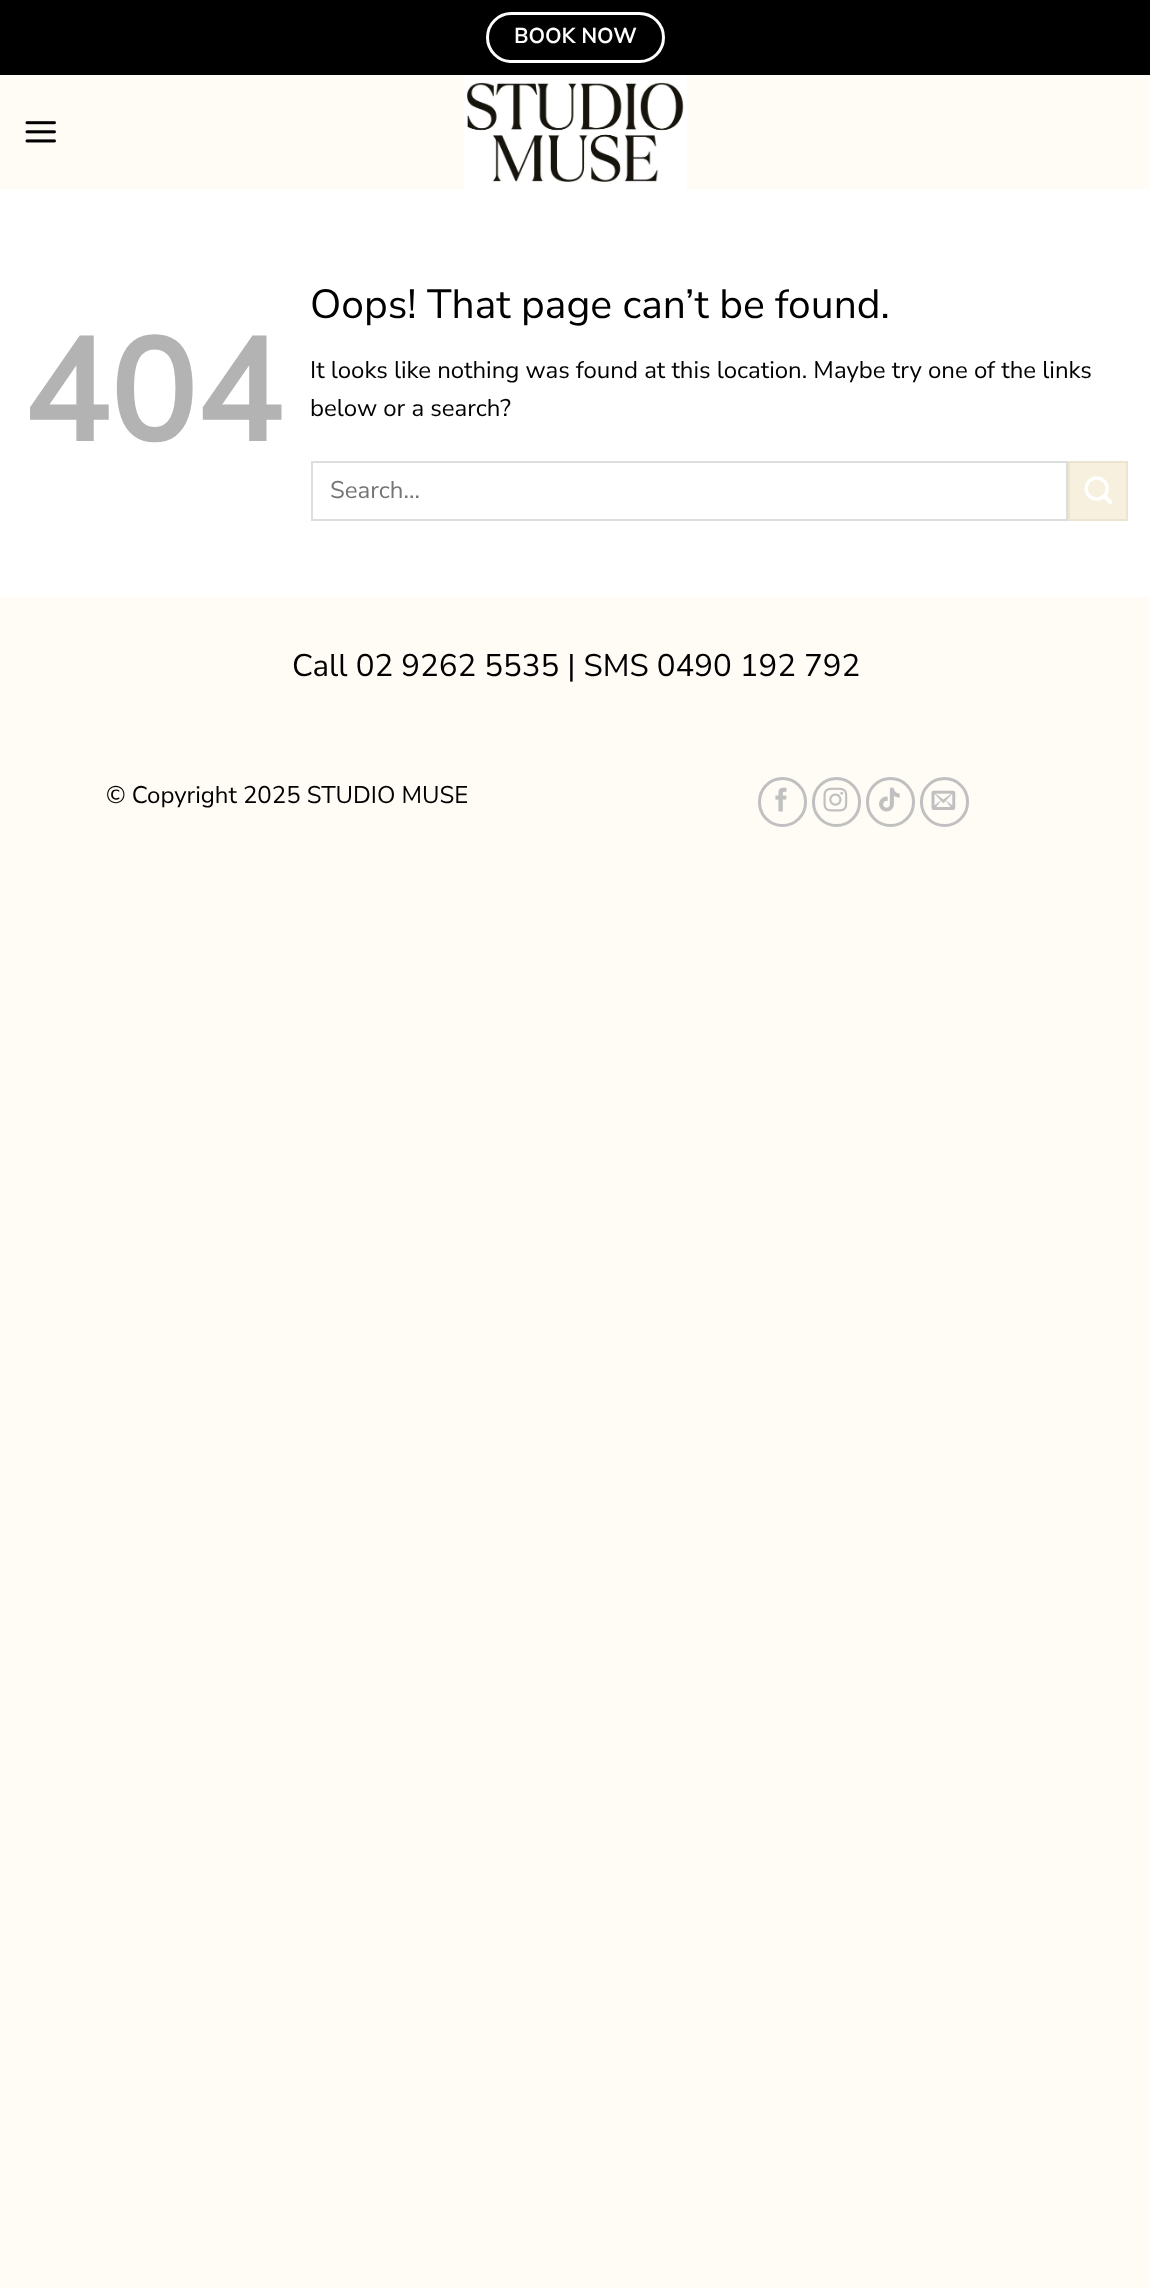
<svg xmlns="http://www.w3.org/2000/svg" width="1150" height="2288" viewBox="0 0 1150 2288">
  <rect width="100%" height="100%" fill="rgb(255,251,245)"/>
  <rect x="0" y="189" width="1150" height="408" fill="rgb(255,255,255)"/>
  <rect x="0" y="0" width="1150" height="75" fill="rgb(0,0,0)"/>
  <rect x="487.5" y="13.5" width="176" height="48" rx="24" fill="none" stroke="rgb(255,255,255)" stroke-width="3"/>
  <text x="514" y="43" font-family="Nunito Sans" font-size="20.75" font-weight="bold" letter-spacing="0.5" fill="rgb(255,255,255)">BOOK NOW</text>
  <image x="25" y="121" width="31" height="22" href="pic1.png"/>
  <image x="463" y="75" width="224" height="114" href="pic2.png"/>
  <text x="23" y="441" font-family="Nunito Sans" font-size="144" font-weight="bold" fill="rgb(179,179,179)">404</text>
  <text x="310" y="318" font-family="Nunito Sans" font-size="40.75" fill="rgb(0,0,0)">Oops! That page can’t be found.</text>
  <g font-family="Nunito Sans" font-size="24" fill="rgb(0,0,0)">
    <text>
      <tspan x="310" y="378">It looks like nothing was found at this location. Maybe try one of the links</tspan>
      <tspan x="310" y="416">below or a search?</tspan>
    </text>
  </g>
  <rect x="312" y="462" width="755" height="58" fill="none" stroke="rgb(221,221,221)" stroke-width="2"/>
  <text x="330" y="498" font-family="Nunito Sans" font-size="24" fill="rgb(117,117,117)">Search…</text>
  <rect x="1069" y="462" width="58" height="58" fill="rgb(248,240,222)" stroke="rgb(236,228,211)" stroke-width="2"/>
  <image x="1084" y="476" width="29" height="29" href="pic3.png"/>
  <text x="292" y="676" font-family="Nunito Sans" font-size="31.25" fill="rgb(0,0,0)">Call 02 9262 5535 | SMS 0490 192 792</text>
  <text x="106" y="803" font-family="Nunito Sans" font-size="24" fill="rgb(0,0,0)">© Copyright 2025 STUDIO MUSE</text>
  <rect x="759.5" y="778.5" width="46" height="47" rx="23" fill="none" stroke="rgb(192,192,192)" stroke-width="3"/>
  <image x="775" y="787" width="12" height="25" href="pic4.png"/>
  <rect x="813.5" y="778.5" width="46" height="47" rx="23" fill="none" stroke="rgb(192,192,192)" stroke-width="3"/>
  <image x="823" y="787" width="25" height="25" href="pic5.png"/>
  <rect x="867.5" y="778.5" width="46" height="47" rx="23" fill="none" stroke="rgb(192,192,192)" stroke-width="3"/>
  <image x="879" y="787" width="21" height="25" href="pic6.png"/>
  <rect x="921.5" y="778.5" width="46" height="47" rx="23" fill="none" stroke="rgb(192,192,192)" stroke-width="3"/>
  <image x="931" y="790" width="25" height="20" href="pic7.png"/>
</svg>
